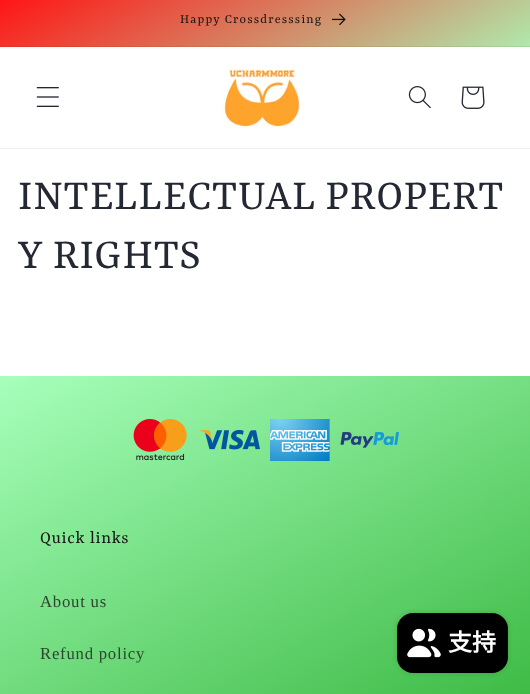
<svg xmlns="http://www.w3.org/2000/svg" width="530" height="694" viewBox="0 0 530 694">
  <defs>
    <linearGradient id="g1" gradientUnits="userSpaceOnUse" x1="474" y1="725" x2="56" y2="-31"><stop offset="0" stop-color="rgb(63,187,70)"/><stop offset="0.62" stop-color="rgb(167,255,187)"/><stop offset="1" stop-color="rgb(255,21,21)"/><stop offset="1" stop-color="rgb(127,72,176)"/><stop offset="1" stop-color="rgb(48,145,211)"/></linearGradient>
    <linearGradient id="g2" gradientUnits="userSpaceOnUse" x1="474" y1="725" x2="56" y2="-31"><stop offset="0" stop-color="rgb(59,173,66)"/><stop offset="0.62" stop-color="rgb(155,236,173)"/><stop offset="1" stop-color="rgb(236,21,21)"/><stop offset="1" stop-color="rgb(118,68,163)"/><stop offset="1" stop-color="rgb(46,135,196)"/></linearGradient>
  </defs>
  <rect width="100%" height="100%" fill="rgb(255,255,255)"/>
  <rect x="0" y="0" width="530" height="46" fill="url(#g1)"/>
  <rect x="0" y="46" width="530" height="1" fill="url(#g2)"/>
  <text x="180" y="23" font-family="Rasa" font-size="13.75" letter-spacing="1.2" fill="rgb(18,18,18)">Happy Crossdresssing</text>
  <image x="332" y="13" width="14" height="12" href="pic1.png"/>
  <rect x="0" y="148" width="530" height="1" fill="rgb(237,238,239)"/>
  <image x="36" y="87" width="23" height="20" href="pic2.png"/>
  <image x="220" y="66" width="81" height="63" href="pic3.png"/>
  <image x="408" y="86" width="23" height="23" href="pic4.png"/>
  <image x="461" y="86" width="24" height="23" href="pic5.png"/>
  <g font-family="Rasa" font-size="46" letter-spacing="0.7" fill="rgb(36,40,51)">
    <text>
      <tspan x="18" y="209">INTELLECTUAL PROPERT</tspan>
      <tspan x="18" y="268">Y RIGHTS</tspan>
    </text>
  </g>
  <rect x="0" y="376" width="530" height="318" fill="url(#g1)"/>
  <image x="133" y="419" width="54" height="42" href="pic6.png"/>
  <image x="200" y="430" width="60" height="20" href="pic7.png"/>
  <image x="270" y="419" width="60" height="42" href="pic8.png"/>
  <image x="340" y="432" width="59" height="16" href="pic9.png"/>
  <text x="40" y="543" font-family="Rasa" font-size="18.5" letter-spacing="0.7" fill="rgb(18,18,18)">Quick links</text>
  <g font-family="Liberation Serif" font-size="16.75" letter-spacing="0.75" fill="rgb(44,70,47)">
    <text x="40" y="607">About us</text>
    <text x="40" y="659">Refund policy</text>
  </g>
  <rect x="397" y="613" width="111" height="60" rx="16" fill="rgba(0,0,0,0.15)" filter="blur(2.5px)"/>
  <rect x="397" y="613" width="111" height="60" rx="16" fill="rgb(0,0,0)"/>
  <image x="407" y="628" width="34" height="30" href="pic10.png"/>
  <text x="448" y="651" font-family="Noto Sans CJK SC" font-size="24" font-weight="bold" fill="rgb(255,255,255)">支持</text>
</svg>
